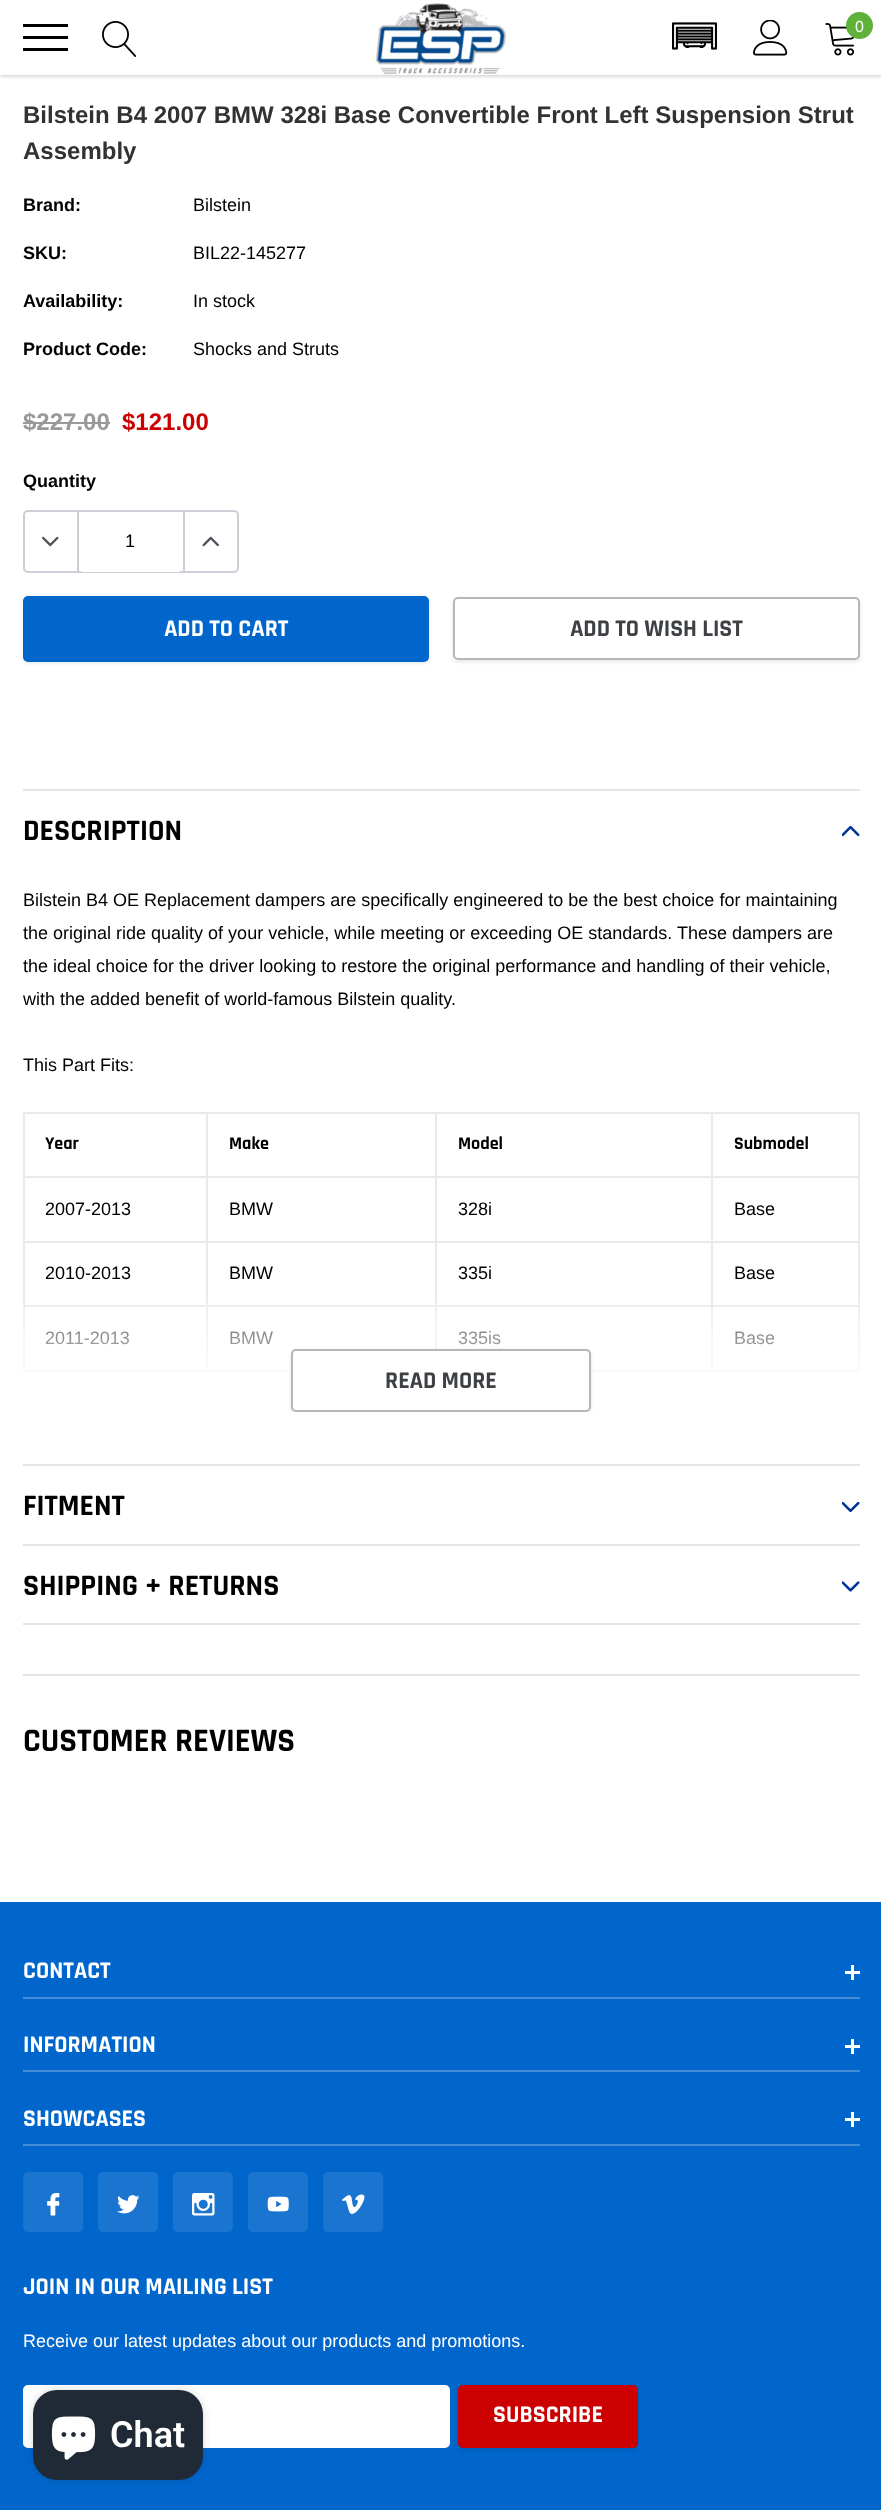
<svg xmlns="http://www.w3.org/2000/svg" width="881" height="2510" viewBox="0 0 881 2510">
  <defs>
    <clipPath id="clip1"><path d="M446 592H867V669H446ZM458 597H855C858 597 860 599 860 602V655C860 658 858 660 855 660H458C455 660 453 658 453 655V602C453 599 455 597 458 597Z" clip-rule="evenodd"/></clipPath>
    <linearGradient id="g1" gradientUnits="userSpaceOnUse" x1="441" y1="1289" x2="441" y2="1412"><stop offset="0" stop-color="rgb(255,255,255)" stop-opacity="0"/><stop offset="0.3" stop-color="rgb(255,255,255)" stop-opacity="0.5"/><stop offset="1" stop-color="rgb(255,255,255)"/></linearGradient>
    <clipPath id="clip2"><rect x="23" y="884" width="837" height="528"/></clipPath>
  </defs>
  <rect width="100%" height="100%" fill="rgb(255,255,255)"/>
  <rect x="0" y="2" width="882" height="75" fill="rgba(0,0,0,0.15)" filter="blur(1.5px)"/>
  <rect x="0" y="0" width="881" height="75" fill="rgb(255,255,255)"/>
  <rect x="23" y="36" width="45" height="3" fill="rgb(0,0,0)"/>
  <rect x="23" y="24" width="45" height="3" fill="rgb(0,0,0)"/>
  <rect x="23" y="48" width="45" height="3" fill="rgb(0,0,0)"/>
  <image x="102" y="21" width="35" height="36" href="pic1.png"/>
  <image x="375" y="3" width="131" height="72" href="pic2.png"/>
  <image x="672" y="22" width="45" height="28" href="pic3.png"/>
  <image x="753" y="20" width="35" height="36" href="pic4.png"/>
  <image x="825" y="23" width="30" height="33" href="pic5.png"/>
  <circle cx="859.5" cy="25.5" r="13.5" fill="rgb(95,177,57)"/>
  <text x="855" y="32" font-family="Arimo" font-size="16" fill="rgb(255,255,255)">0</text>
  <g font-family="Arimo" font-size="24" font-weight="bold" fill="rgb(50,50,50)">
    <text>
      <tspan x="23" y="123">Bilstein B4 2007 BMW 328i Base Convertible Front Left Suspension Strut</tspan>
      <tspan x="23" y="159">Assembly</tspan>
    </text>
  </g>
  <text x="23" y="211" font-family="Arimo" font-size="18" font-weight="bold" fill="rgb(0,0,0)">Brand:</text>
  <text x="193" y="211" font-family="Arimo" font-size="18" fill="rgb(0,0,0)">Bilstein</text>
  <text x="23" y="259" font-family="Arimo" font-size="18" font-weight="bold" fill="rgb(0,0,0)">SKU:</text>
  <text x="193" y="259" font-family="Arimo" font-size="18" fill="rgb(0,0,0)">BIL22-145277</text>
  <text x="23" y="307" font-family="Arimo" font-size="18" font-weight="bold" fill="rgb(0,0,0)">Availability:</text>
  <text x="193" y="307" font-family="Arimo" font-size="18" fill="rgb(0,0,0)">In stock</text>
  <text x="23" y="355" font-family="Arimo" font-size="18" font-weight="bold" fill="rgb(0,0,0)">Product Code:</text>
  <text x="193" y="355" font-family="Arimo" font-size="18" fill="rgb(0,0,0)">Shocks and Struts</text>
  <text x="23" y="430" font-family="Arimo" font-size="24" font-weight="bold" fill="rgb(153,153,153)">$227.00</text>
  <rect x="23" y="422" width="87" height="2" fill="rgb(153,153,153)"/>
  <text x="122" y="430" font-family="Arimo" font-size="24" font-weight="bold" fill="rgb(204,0,0)">$121.00</text>
  <text x="23" y="487" font-family="Arimo" font-size="18" font-weight="bold" fill="rgb(0,0,0)">Quantity</text>
  <rect x="24" y="511" width="214" height="61" rx="4" fill="none" stroke="rgb(204,207,214)" stroke-width="2"/>
  <rect x="78" y="512" width="105" height="60" rx="5" fill="rgb(255,255,255)"/>
  <rect x="77" y="512" width="2" height="60" fill="rgb(204,207,214)"/>
  <image x="42" y="536" width="17" height="11" href="pic6.png"/>
  <text x="125" y="547" font-family="Arimo" font-size="18" fill="rgb(0,0,0)">1</text>
  <rect x="183" y="512" width="2" height="60" fill="rgb(204,207,214)"/>
  <image x="202" y="536" width="17" height="11" href="pic7.png"/>
  <rect x="23" y="597" width="406" height="66" rx="5" fill="rgba(0,0,0,0.1)" filter="blur(2px)"/>
  <rect x="24" y="597" width="404" height="64" rx="4" fill="rgb(0,102,204)" stroke="rgb(0,102,204)" stroke-width="2"/>
  <text x="164" y="636" font-family="Rajdhani" font-size="24" font-weight="bold" fill="rgb(255,255,255)">ADD TO CART</text>
  <g clip-path="url(#clip1)">
    <rect x="453" y="599" width="407" height="63" rx="5" fill="rgba(0,0,0,0.1)" filter="blur(2px)"/>
  </g>
  <rect x="454" y="598" width="405" height="61" rx="4" fill="none" stroke="rgb(182,182,182)" stroke-width="2"/>
  <text x="570" y="636" font-family="Rajdhani" font-size="24" font-weight="bold" fill="rgb(61,64,68)">ADD TO WISH LIST</text>
  <rect x="23" y="1623" width="837" height="2" fill="rgb(226,228,232)"/>
  <rect x="23" y="789" width="837" height="2" fill="rgb(226,228,232)"/>
  <text x="23" y="840" font-family="Rajdhani" font-size="30" font-weight="bold" fill="rgb(0,0,0)">DESCRIPTION</text>
  <image x="842" y="825" width="18" height="12" href="pic8.png"/>
  <g font-family="Arimo" font-size="18" fill="rgb(0,0,0)">
    <text>
      <tspan x="23" y="906">Bilstein B4 OE Replacement dampers are specifically engineered to be the best choice for maintaining</tspan>
      <tspan x="23" y="939">the original ride quality of your vehicle, while meeting or exceeding OE standards. These dampers are</tspan>
      <tspan x="23" y="972">the ideal choice for the driver looking to restore the original performance and handling of their vehicle,</tspan>
      <tspan x="23" y="1005">with the added benefit of world-famous Bilstein quality.</tspan>
    </text>
    <text x="23" y="1071">This Part Fits:</text>
  </g>
  <rect x="711" y="1112" width="149" height="2" fill="rgb(232,233,235)"/>
  <rect x="711" y="1176" width="149" height="2" fill="rgb(232,233,235)"/>
  <rect x="711" y="1241" width="149" height="2" fill="rgb(232,233,235)"/>
  <rect x="711" y="1305" width="149" height="2" fill="rgb(232,233,235)"/>
  <rect x="858" y="1305" width="2" height="66" fill="rgb(232,233,235)"/>
  <rect x="711" y="1370" width="149" height="2" fill="rgb(232,233,235)"/>
  <rect x="711" y="1305" width="2" height="66" fill="rgb(232,233,235)"/>
  <rect x="435" y="1305" width="278" height="2" fill="rgb(232,233,235)"/>
  <rect x="711" y="1241" width="2" height="66" fill="rgb(232,233,235)"/>
  <rect x="435" y="1241" width="278" height="2" fill="rgb(232,233,235)"/>
  <rect x="711" y="1176" width="2" height="66" fill="rgb(232,233,235)"/>
  <rect x="435" y="1176" width="278" height="2" fill="rgb(232,233,235)"/>
  <rect x="711" y="1112" width="2" height="66" fill="rgb(232,233,235)"/>
  <rect x="435" y="1112" width="278" height="2" fill="rgb(232,233,235)"/>
  <rect x="435" y="1305" width="2" height="44" fill="rgb(232,233,235)"/>
  <rect x="206" y="1305" width="231" height="2" fill="rgb(232,233,235)"/>
  <rect x="435" y="1241" width="2" height="66" fill="rgb(232,233,235)"/>
  <rect x="206" y="1241" width="231" height="2" fill="rgb(232,233,235)"/>
  <rect x="435" y="1176" width="2" height="66" fill="rgb(232,233,235)"/>
  <rect x="206" y="1176" width="231" height="2" fill="rgb(232,233,235)"/>
  <rect x="435" y="1112" width="2" height="66" fill="rgb(232,233,235)"/>
  <rect x="206" y="1112" width="231" height="2" fill="rgb(232,233,235)"/>
  <rect x="206" y="1370" width="85" height="2" fill="rgb(232,233,235)"/>
  <rect x="206" y="1305" width="2" height="66" fill="rgb(232,233,235)"/>
  <rect x="23" y="1305" width="184" height="2" fill="rgb(232,233,235)"/>
  <rect x="206" y="1241" width="2" height="66" fill="rgb(232,233,235)"/>
  <rect x="23" y="1241" width="184" height="2" fill="rgb(232,233,235)"/>
  <rect x="206" y="1176" width="2" height="66" fill="rgb(232,233,235)"/>
  <rect x="23" y="1176" width="184" height="2" fill="rgb(232,233,235)"/>
  <rect x="206" y="1112" width="2" height="66" fill="rgb(232,233,235)"/>
  <rect x="23" y="1112" width="184" height="2" fill="rgb(232,233,235)"/>
  <rect x="23" y="1370" width="184" height="2" fill="rgb(232,233,235)"/>
  <rect x="23" y="1305" width="2" height="66" fill="rgb(232,233,235)"/>
  <rect x="23" y="1241" width="2" height="66" fill="rgb(232,233,235)"/>
  <rect x="23" y="1176" width="2" height="66" fill="rgb(232,233,235)"/>
  <rect x="23" y="1112" width="2" height="66" fill="rgb(232,233,235)"/>
  <g font-family="Rajdhani" font-size="18" font-weight="bold" fill="rgb(0,0,0)">
    <text x="45" y="1149">Year</text>
    <text x="229" y="1149">Make</text>
    <text x="458" y="1149">Model</text>
  </g>
  <rect x="858" y="1241" width="2" height="66" fill="rgb(232,233,235)"/>
  <rect x="858" y="1176" width="2" height="66" fill="rgb(232,233,235)"/>
  <rect x="858" y="1112" width="2" height="66" fill="rgb(232,233,235)"/>
  <text x="734" y="1149" font-family="Rajdhani" font-size="18" font-weight="bold" fill="rgb(0,0,0)">Submodel</text>
  <g font-family="Arimo" font-size="18" fill="rgb(0,0,0)">
    <text x="45" y="1215">2007-2013</text>
    <text x="229" y="1215">BMW</text>
    <text x="458" y="1215">328i</text>
    <text x="734" y="1215">Base</text>
    <text x="45" y="1279">2010-2013</text>
    <text x="229" y="1279">BMW</text>
    <text x="458" y="1279">335i</text>
    <text x="734" y="1279">Base</text>
    <text x="45" y="1344">2011-2013</text>
    <text x="229" y="1344">BMW</text>
  </g>
  <rect x="591" y="1370" width="122" height="2" fill="rgb(232,233,235)"/>
  <g font-family="Arimo" font-size="18" fill="rgb(0,0,0)">
    <text x="458" y="1344">335is</text>
    <text x="734" y="1344">Base</text>
  </g>
  <rect x="23" y="1297" width="837" height="75" fill="url(#g1)"/>
  <g clip-path="url(#clip2)">
    <rect x="291" y="1350" width="300" height="63" rx="5" fill="rgba(0,0,0,0.1)" filter="blur(2px)"/>
  </g>
  <rect x="292" y="1350" width="298" height="61" rx="4" fill="rgb(255,255,255)" stroke="rgb(182,182,182)" stroke-width="2"/>
  <text x="385" y="1388" font-family="Rajdhani" font-size="24" font-weight="bold" fill="rgb(61,64,68)">READ MORE</text>
  <rect x="23" y="1464" width="837" height="2" fill="rgb(226,228,232)"/>
  <text x="23" y="1515" font-family="Rajdhani" font-size="30" font-weight="bold" fill="rgb(0,0,0)">FITMENT</text>
  <image x="842" y="1501" width="18" height="12" href="pic9.png"/>
  <rect x="23" y="1544" width="837" height="2" fill="rgb(226,228,232)"/>
  <text x="23" y="1595" font-family="Rajdhani" font-size="30" font-weight="bold" fill="rgb(0,0,0)">SHIPPING + RETURNS</text>
  <image x="842" y="1581" width="18" height="11" href="pic10.png"/>
  <rect x="23" y="1674" width="837" height="2" fill="rgb(226,228,232)"/>
  <text x="23" y="1751" font-family="Rajdhani" font-size="33" font-weight="bold" fill="rgb(0,0,0)">CUSTOMER REVIEWS</text>
  <rect x="0" y="1902" width="881" height="608" fill="rgb(0,102,204)"/>
  <rect x="23" y="1997" width="837" height="2" fill="rgb(68,140,212)"/>
  <text x="23" y="1978" font-family="Rajdhani" font-size="24" font-weight="bold" fill="rgb(255,255,255)">CONTACT</text>
  <rect x="851" y="1965" width="3" height="15" fill="rgb(255,255,255)"/>
  <rect x="845" y="1971" width="15" height="3" fill="rgb(255,255,255)"/>
  <rect x="23" y="2070" width="837" height="2" fill="rgb(68,140,212)"/>
  <text x="23" y="2052" font-family="Rajdhani" font-size="24" font-weight="bold" fill="rgb(255,255,255)">INFORMATION</text>
  <rect x="851" y="2039" width="3" height="15" fill="rgb(255,255,255)"/>
  <rect x="845" y="2045" width="15" height="3" fill="rgb(255,255,255)"/>
  <rect x="23" y="2144" width="837" height="2" fill="rgb(68,140,212)"/>
  <text x="23" y="2126" font-family="Rajdhani" font-size="24" font-weight="bold" fill="rgb(255,255,255)">SHOWCASES</text>
  <rect x="851" y="2112" width="3" height="15" fill="rgb(255,255,255)"/>
  <rect x="845" y="2118" width="15" height="3" fill="rgb(255,255,255)"/>
  <rect x="23" y="2172" width="60" height="60" rx="5" fill="rgb(26,117,209)"/>
  <image x="47" y="2193" width="13" height="23" href="pic11.png"/>
  <rect x="98" y="2172" width="60" height="60" rx="5" fill="rgb(26,117,209)"/>
  <image x="117" y="2195" width="23" height="19" href="pic12.png"/>
  <rect x="173" y="2172" width="60" height="60" rx="5" fill="rgb(26,117,209)"/>
  <image x="192" y="2193" width="23" height="23" href="pic13.png"/>
  <rect x="248" y="2172" width="60" height="60" rx="5" fill="rgb(26,117,209)"/>
  <image x="267" y="2196" width="22" height="16" href="pic14.png"/>
  <rect x="323" y="2172" width="60" height="60" rx="5" fill="rgb(26,117,209)"/>
  <image x="342" y="2194" width="23" height="20" href="pic15.png"/>
  <text x="23" y="2294" font-family="Rajdhani" font-size="24" font-weight="bold" fill="rgb(255,255,255)">JOIN IN OUR MAILING LIST</text>
  <text x="23" y="2347" font-family="Arimo" font-size="18" fill="rgb(255,255,255)">Receive our latest updates about our products and promotions.</text>
  <rect x="24" y="2386" width="425" height="61" rx="4" fill="rgb(255,255,255)" stroke="rgb(255,255,255)" stroke-width="2"/>
  <rect x="458" y="2387" width="180" height="63" rx="5" fill="rgba(0,0,0,0.1)" filter="blur(2px)"/>
  <rect x="459" y="2386" width="178" height="61" rx="4" fill="rgb(204,0,0)" stroke="rgb(204,0,0)" stroke-width="2"/>
  <text x="493" y="2422" font-family="Rajdhani" font-size="24" font-weight="bold" fill="rgb(255,255,255)">SUBSCRIBE</text>
  <rect x="33" y="2390" width="170" height="90" rx="24" fill="rgba(0,0,0,0.15)" filter="blur(4px)"/>
  <rect x="33" y="2390" width="170" height="90" rx="24" fill="rgb(32,42,54)"/>
  <image x="51" y="2416" width="45" height="44" href="pic16.png"/>
  <text x="110" y="2447" font-family="Roboto" font-size="36" font-weight="600" fill="rgb(255,255,255)">Chat</text>
</svg>
